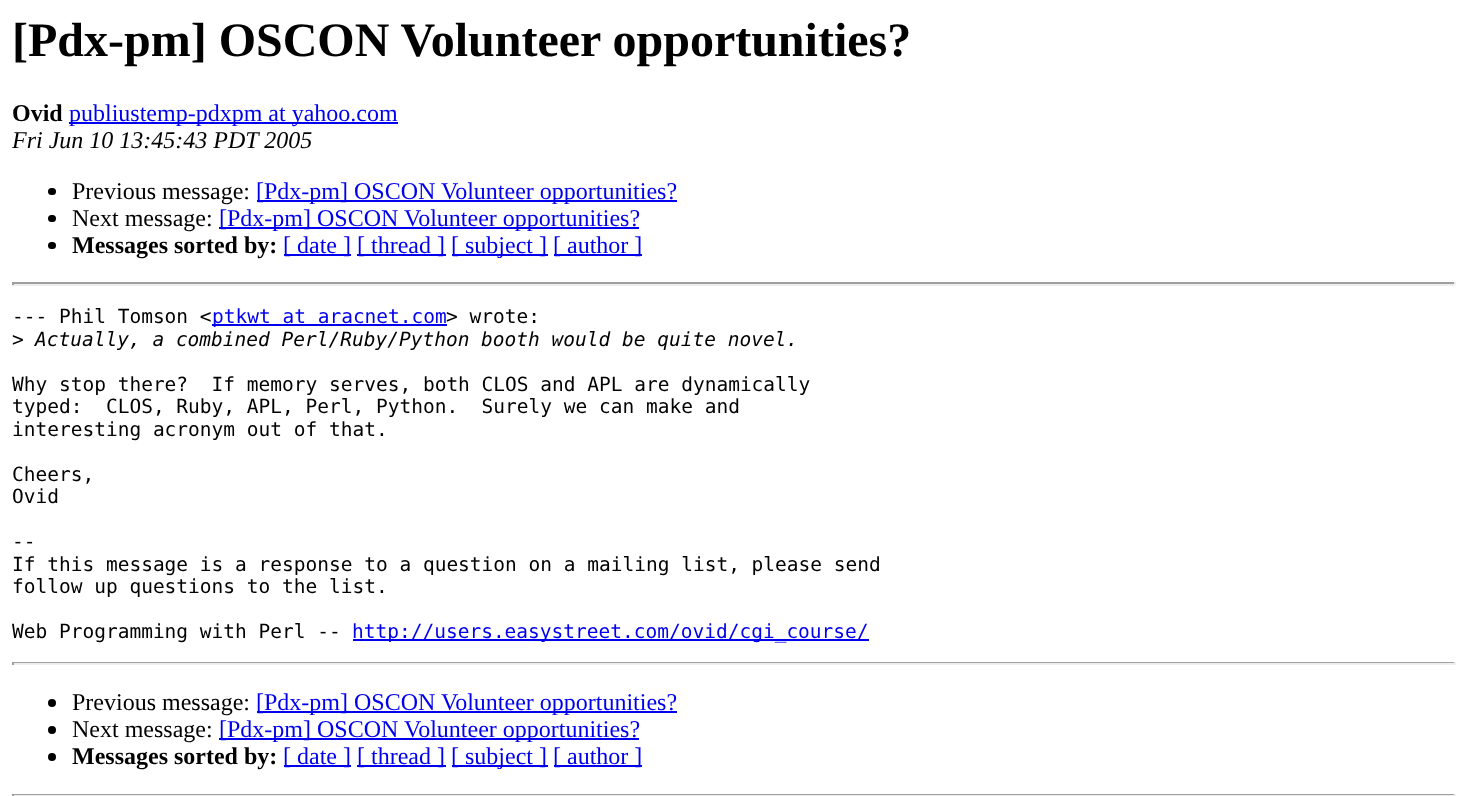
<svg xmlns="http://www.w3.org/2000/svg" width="1467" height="796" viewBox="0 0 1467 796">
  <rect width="100%" height="100%" fill="rgb(255,255,255)"/>
  <text x="12" y="56" font-family="Liberation Serif" font-size="48" font-weight="bold" fill="rgb(0,0,0)">[Pdx-pm] OSCON Volunteer opportunities?</text>
  <text x="12" y="121" font-family="Liberation Serif" font-size="24" font-weight="bold" fill="rgb(0,0,0)">Ovid</text>
  <rect x="69" y="122" width="329" height="2" fill="rgb(0,0,238)"/>
  <text x="69" y="121" font-family="Liberation Serif" font-size="24" fill="rgb(0,0,238)">publiustemp-pdxpm at yahoo.com</text>
  <text x="12" y="148" font-family="Liberation Serif" font-size="24" font-style="italic" fill="rgb(0,0,0)">Fri Jun 10 13:45:43 PDT 2005</text>
  <rect x="48" y="188" width="8" height="7" rx="3.5" fill="rgb(0,0,0)"/>
  <text x="72" y="199" font-family="Liberation Serif" font-size="24" fill="rgb(0,0,0)">Previous message:</text>
  <rect x="257" y="200" width="420" height="2" fill="rgb(0,0,238)"/>
  <text x="256" y="199" font-family="Liberation Serif" font-size="24" fill="rgb(0,0,238)">[Pdx-pm] OSCON Volunteer opportunities?</text>
  <rect x="48" y="215" width="8" height="7" rx="3.5" fill="rgb(0,0,0)"/>
  <text x="72" y="226" font-family="Liberation Serif" font-size="24" fill="rgb(0,0,0)">Next message:</text>
  <rect x="219" y="227" width="420" height="2" fill="rgb(0,0,238)"/>
  <text x="219" y="226" font-family="Liberation Serif" font-size="24" fill="rgb(0,0,238)">[Pdx-pm] OSCON Volunteer opportunities?</text>
  <rect x="48" y="242" width="8" height="7" rx="3.5" fill="rgb(0,0,0)"/>
  <text x="72" y="253" font-family="Liberation Serif" font-size="24" font-weight="bold" fill="rgb(0,0,0)">Messages sorted by:</text>
  <rect x="284" y="254" width="67" height="2" fill="rgb(0,0,238)"/>
  <text x="283" y="253" font-family="Liberation Serif" font-size="24" fill="rgb(0,0,238)">[ date ]</text>
  <rect x="357" y="254" width="89" height="2" fill="rgb(0,0,238)"/>
  <text x="357" y="253" font-family="Liberation Serif" font-size="24" fill="rgb(0,0,238)">[ thread ]</text>
  <rect x="452" y="254" width="96" height="2" fill="rgb(0,0,238)"/>
  <text x="451" y="253" font-family="Liberation Serif" font-size="24" fill="rgb(0,0,238)">[ subject ]</text>
  <rect x="554" y="254" width="88" height="2" fill="rgb(0,0,238)"/>
  <text x="553" y="253" font-family="Liberation Serif" font-size="24" fill="rgb(0,0,238)">[ author ]</text>
  <rect x="12" y="282" width="1443" height="2" fill="rgb(159,159,159)"/>
  <rect x="1454" y="282" width="2" height="3" fill="rgb(238,238,238)"/>
  <rect x="12" y="284" width="1443" height="2" fill="rgb(238,238,238)"/>
  <rect x="12" y="282" width="2" height="3" fill="rgb(159,159,159)"/>
  <text x="12" y="323" font-family="DejaVu Sans Mono" font-size="19.5" fill="rgb(0,0,0)">--- Phil Tomson &lt;</text>
  <rect x="212" y="324" width="235" height="2" fill="rgb(0,0,238)"/>
  <text x="212" y="323" font-family="DejaVu Sans Mono" font-size="19.5" fill="rgb(0,0,238)">ptkwt at aracnet.com</text>
  <g font-family="DejaVu Sans Mono" font-size="19.5" fill="rgb(0,0,0)">
    <text x="446" y="323">&gt; wrote:</text>
    <text x="12" y="346">&gt;</text>
  </g>
  <text x="35" y="346" font-family="DejaVu Sans Mono" font-size="19.5" font-style="italic" fill="rgb(0,0,0)">Actually, a combined Perl/Ruby/Python booth would be quite novel.</text>
  <g font-family="DejaVu Sans Mono" font-size="19.5" fill="rgb(0,0,0)">
    <text xml:space="preserve"><tspan x="12" y="391">Why stop there?  If memory serves, both CLOS and APL are dynamically</tspan><tspan x="12" y="413">typed:  CLOS, Ruby, APL, Perl, Python.  Surely we can make and</tspan><tspan x="12" y="436">interesting acronym out of that.</tspan></text>
    <text>
      <tspan x="12" y="481">Cheers,</tspan>
      <tspan x="12" y="503">Ovid</tspan>
    </text>
    <text>
      <tspan x="12" y="548">--</tspan>
      <tspan x="12" y="571">If this message is a response to a question on a mailing list, please send</tspan>
      <tspan x="12" y="593">follow up questions to the list.</tspan>
    </text>
    <text x="12" y="638">Web Programming with Perl --</text>
  </g>
  <rect x="353" y="639" width="516" height="2" fill="rgb(0,0,238)"/>
  <text x="352" y="638" font-family="DejaVu Sans Mono" font-size="19.5" fill="rgb(0,0,238)">http://users.easystreet.com/ovid/cgi_course/</text>
  <rect x="12" y="662" width="1443" height="1" fill="rgb(159,159,159)"/>
  <rect x="1454" y="662" width="2" height="3" fill="rgb(238,238,238)"/>
  <rect x="12" y="663" width="1443" height="2" fill="rgb(238,238,238)"/>
  <rect x="12" y="662" width="2" height="3" fill="rgb(159,159,159)"/>
  <circle cx="52" cy="703" r="4" fill="rgb(0,0,0)"/>
  <text x="72" y="710" font-family="Liberation Serif" font-size="24" fill="rgb(0,0,0)">Previous message:</text>
  <rect x="257" y="711" width="420" height="2" fill="rgb(0,0,238)"/>
  <text x="256" y="710" font-family="Liberation Serif" font-size="24" fill="rgb(0,0,238)">[Pdx-pm] OSCON Volunteer opportunities?</text>
  <circle cx="52" cy="730" r="4" fill="rgb(0,0,0)"/>
  <text x="72" y="737" font-family="Liberation Serif" font-size="24" fill="rgb(0,0,0)">Next message:</text>
  <rect x="219" y="738" width="420" height="2" fill="rgb(0,0,238)"/>
  <text x="219" y="737" font-family="Liberation Serif" font-size="24" fill="rgb(0,0,238)">[Pdx-pm] OSCON Volunteer opportunities?</text>
  <circle cx="52" cy="757" r="4" fill="rgb(0,0,0)"/>
  <text x="72" y="764" font-family="Liberation Serif" font-size="24" font-weight="bold" fill="rgb(0,0,0)">Messages sorted by:</text>
  <rect x="284" y="765" width="67" height="2" fill="rgb(0,0,238)"/>
  <text x="283" y="764" font-family="Liberation Serif" font-size="24" fill="rgb(0,0,238)">[ date ]</text>
  <rect x="357" y="765" width="89" height="2" fill="rgb(0,0,238)"/>
  <text x="357" y="764" font-family="Liberation Serif" font-size="24" fill="rgb(0,0,238)">[ thread ]</text>
  <rect x="452" y="765" width="96" height="2" fill="rgb(0,0,238)"/>
  <text x="451" y="764" font-family="Liberation Serif" font-size="24" fill="rgb(0,0,238)">[ subject ]</text>
  <rect x="554" y="765" width="88" height="2" fill="rgb(0,0,238)"/>
  <text x="553" y="764" font-family="Liberation Serif" font-size="24" fill="rgb(0,0,238)">[ author ]</text>
  <rect x="12" y="794" width="1443" height="1" fill="rgb(159,159,159)"/>
  <rect x="1454" y="794" width="2" height="2" fill="rgb(238,238,238)"/>
  <rect x="12" y="795" width="1443" height="1" fill="rgb(238,238,238)"/>
  <rect x="12" y="795" width="2" height="1" fill="rgb(159,159,159)"/>
</svg>
